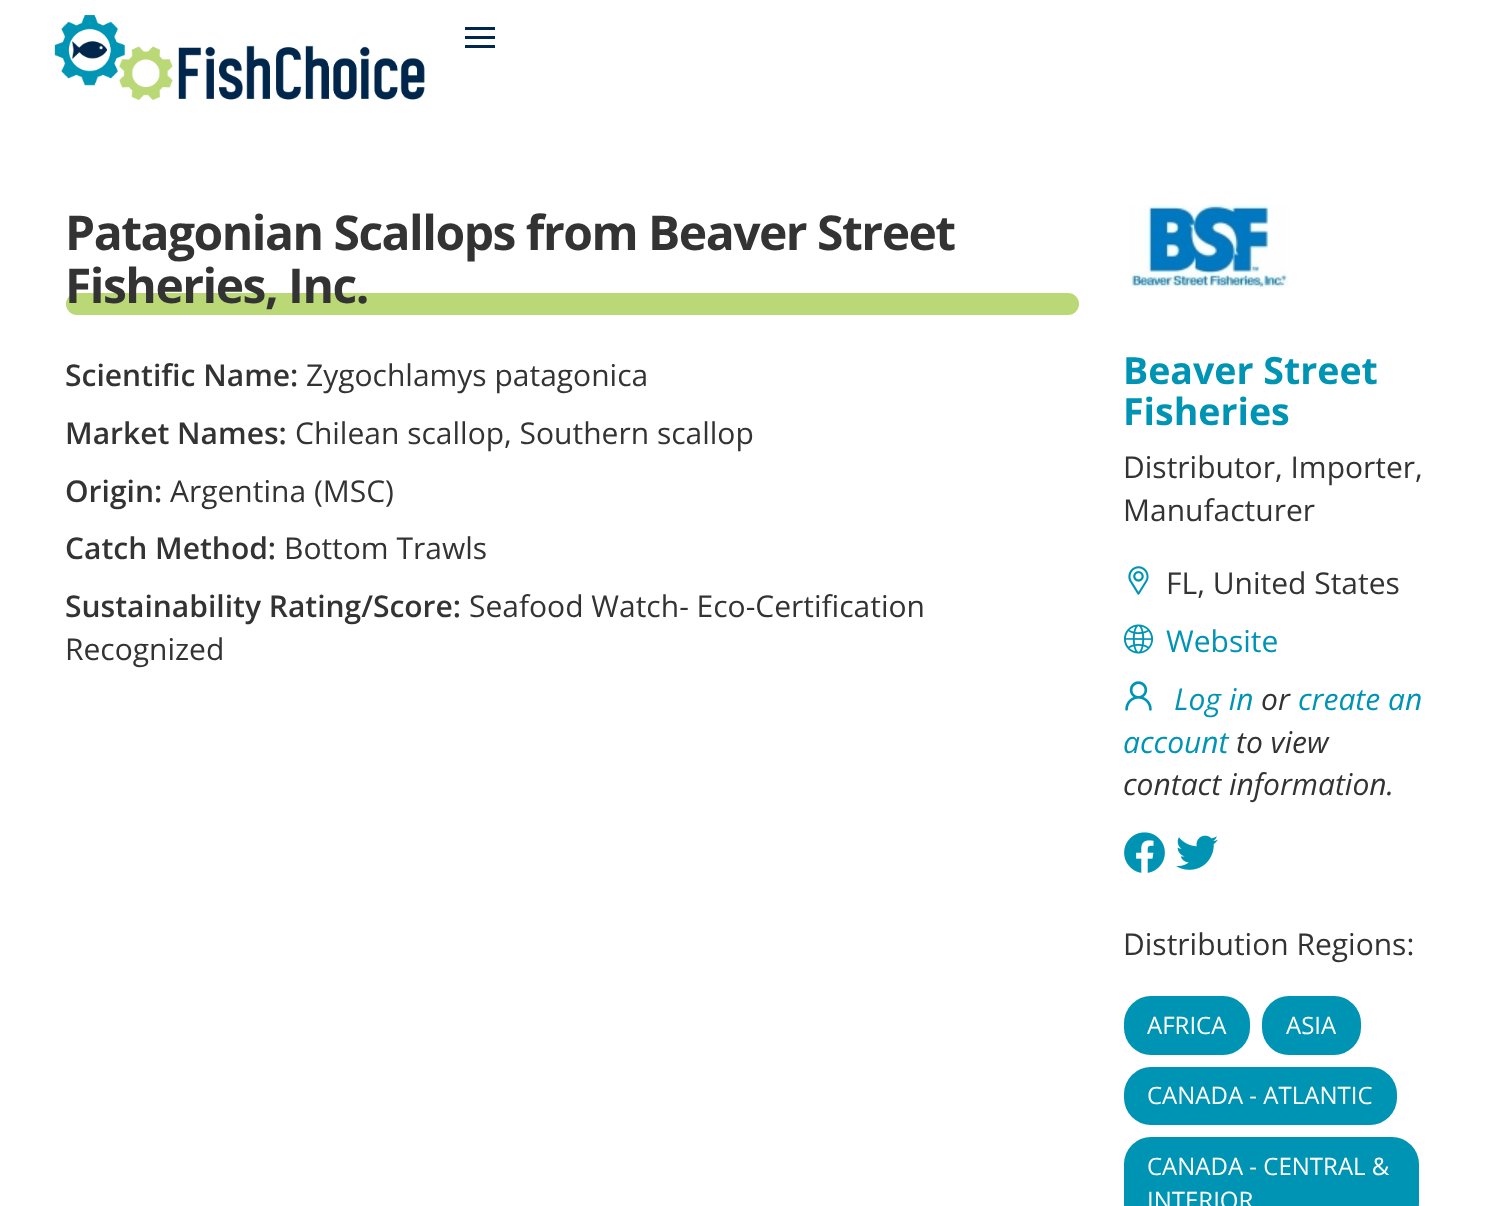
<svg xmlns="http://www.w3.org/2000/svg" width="1495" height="1206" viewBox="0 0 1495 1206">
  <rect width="100%" height="100%" fill="rgb(255,255,255)"/>
  <image x="54" y="15" width="371" height="86" href="pic1.png"/>
  <rect x="465" y="27" width="30" height="3" fill="rgb(0,39,76)"/>
  <rect x="465" y="36" width="30" height="3" fill="rgb(0,39,76)"/>
  <rect x="465" y="45" width="30" height="3" fill="rgb(0,39,76)"/>
  <text x="65" y="250" font-family="Open Sans" font-size="48" font-weight="bold" letter-spacing="-1.5" fill="rgb(51,51,51)">Patagonian Scallops from Beaver Street</text>
  <rect x="66" y="293" width="1013" height="22" rx="11" fill="rgb(186,216,118)"/>
  <text x="65" y="303" font-family="Open Sans" font-size="48" font-weight="bold" letter-spacing="-1.5" fill="rgb(51,51,51)">Fisheries, Inc.</text>
  <text x="65" y="386" font-family="Open Sans" font-size="30" font-weight="600" fill="rgb(51,51,51)">Scientific Name:</text>
  <text x="306" y="386" font-family="Open Sans" font-size="30" fill="rgb(51,51,51)">Zygochlamys patagonica</text>
  <text x="65" y="444" font-family="Open Sans" font-size="30" font-weight="600" fill="rgb(51,51,51)">Market Names:</text>
  <text x="295" y="444" font-family="Open Sans" font-size="30" fill="rgb(51,51,51)">Chilean scallop, Southern scallop</text>
  <text x="65" y="502" font-family="Open Sans" font-size="30" font-weight="600" fill="rgb(51,51,51)">Origin:</text>
  <text x="170" y="502" font-family="Open Sans" font-size="30" fill="rgb(51,51,51)">Argentina (MSC)</text>
  <text x="65" y="559" font-family="Open Sans" font-size="30" font-weight="600" fill="rgb(51,51,51)">Catch Method:</text>
  <text x="284" y="559" font-family="Open Sans" font-size="30" fill="rgb(51,51,51)">Bottom Trawls</text>
  <text x="65" y="617" font-family="Open Sans" font-size="30" font-weight="600" fill="rgb(51,51,51)">Sustainability Rating/Score:</text>
  <g font-family="Open Sans" font-size="30" fill="rgb(51,51,51)">
    <text x="469" y="617">Seafood Watch- Eco-Certification</text>
    <text x="65" y="660">Recognized</text>
  </g>
  <image x="1130" y="205" width="159" height="84" href="pic2.png"/>
  <g font-family="Open Sans" font-size="37.5" font-weight="bold" fill="rgb(0,148,180)">
    <text>
      <tspan x="1123" y="384">Beaver Street</tspan>
      <tspan x="1123" y="425">Fisheries</tspan>
    </text>
  </g>
  <g font-family="Open Sans" font-size="30" fill="rgb(51,51,51)">
    <text>
      <tspan x="1123" y="478">Distributor, Importer,</tspan>
      <tspan x="1123" y="521">Manufacturer</tspan>
    </text>
  </g>
  <image x="1128" y="566" width="21" height="29" href="pic3.png"/>
  <text x="1166" y="594" font-family="Open Sans" font-size="30" fill="rgb(51,51,51)">FL, United States</text>
  <image x="1124" y="624" width="30" height="30" href="pic4.png"/>
  <text x="1166" y="652" font-family="Open Sans" font-size="30" fill="rgb(0,148,180)">Website</text>
  <image x="1125" y="681" width="27" height="30" href="pic5.png"/>
  <text x="1174" y="710" font-family="Open Sans" font-size="30" font-style="italic" fill="rgb(0,148,180)">Log in</text>
  <text x="1261" y="710" font-family="Open Sans" font-size="30" font-style="italic" fill="rgb(51,51,51)">or</text>
  <g font-family="Open Sans" font-size="30" font-style="italic" fill="rgb(0,148,180)">
    <text x="1298" y="710">create an</text>
    <text x="1123" y="753">account</text>
  </g>
  <g font-family="Open Sans" font-size="30" font-style="italic" fill="rgb(51,51,51)">
    <text x="1236" y="753">to view</text>
    <text x="1123" y="795">contact information.</text>
  </g>
  <image x="1124" y="832" width="41" height="41" href="pic6.png"/>
  <image x="1176" y="835" width="42" height="35" href="pic7.png"/>
  <text x="1123" y="955" font-family="Open Sans" font-size="30" fill="rgb(51,51,51)">Distribution Regions:</text>
  <rect x="1124" y="996" width="126" height="59" rx="27" fill="rgb(0,148,180)"/>
  <text x="1147" y="1034" font-family="Open Sans" font-size="24" fill="rgb(255,255,255)">AFRICA</text>
  <rect x="1262" y="996" width="99" height="59" rx="27" fill="rgb(0,148,180)"/>
  <text x="1286" y="1034" font-family="Open Sans" font-size="24" fill="rgb(255,255,255)">ASIA</text>
  <rect x="1124" y="1067" width="273" height="58" rx="27" fill="rgb(0,148,180)"/>
  <text x="1147" y="1104" font-family="Open Sans" font-size="24" fill="rgb(255,255,255)">CANADA - ATLANTIC</text>
  <rect x="1124" y="1137" width="295" height="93" rx="27" fill="rgb(0,148,180)"/>
  <g font-family="Open Sans" font-size="24" fill="rgb(255,255,255)">
    <text>
      <tspan x="1147" y="1175">CANADA - CENTRAL &amp;</tspan>
      <tspan x="1147" y="1209">INTERIOR</tspan>
    </text>
  </g>
</svg>
